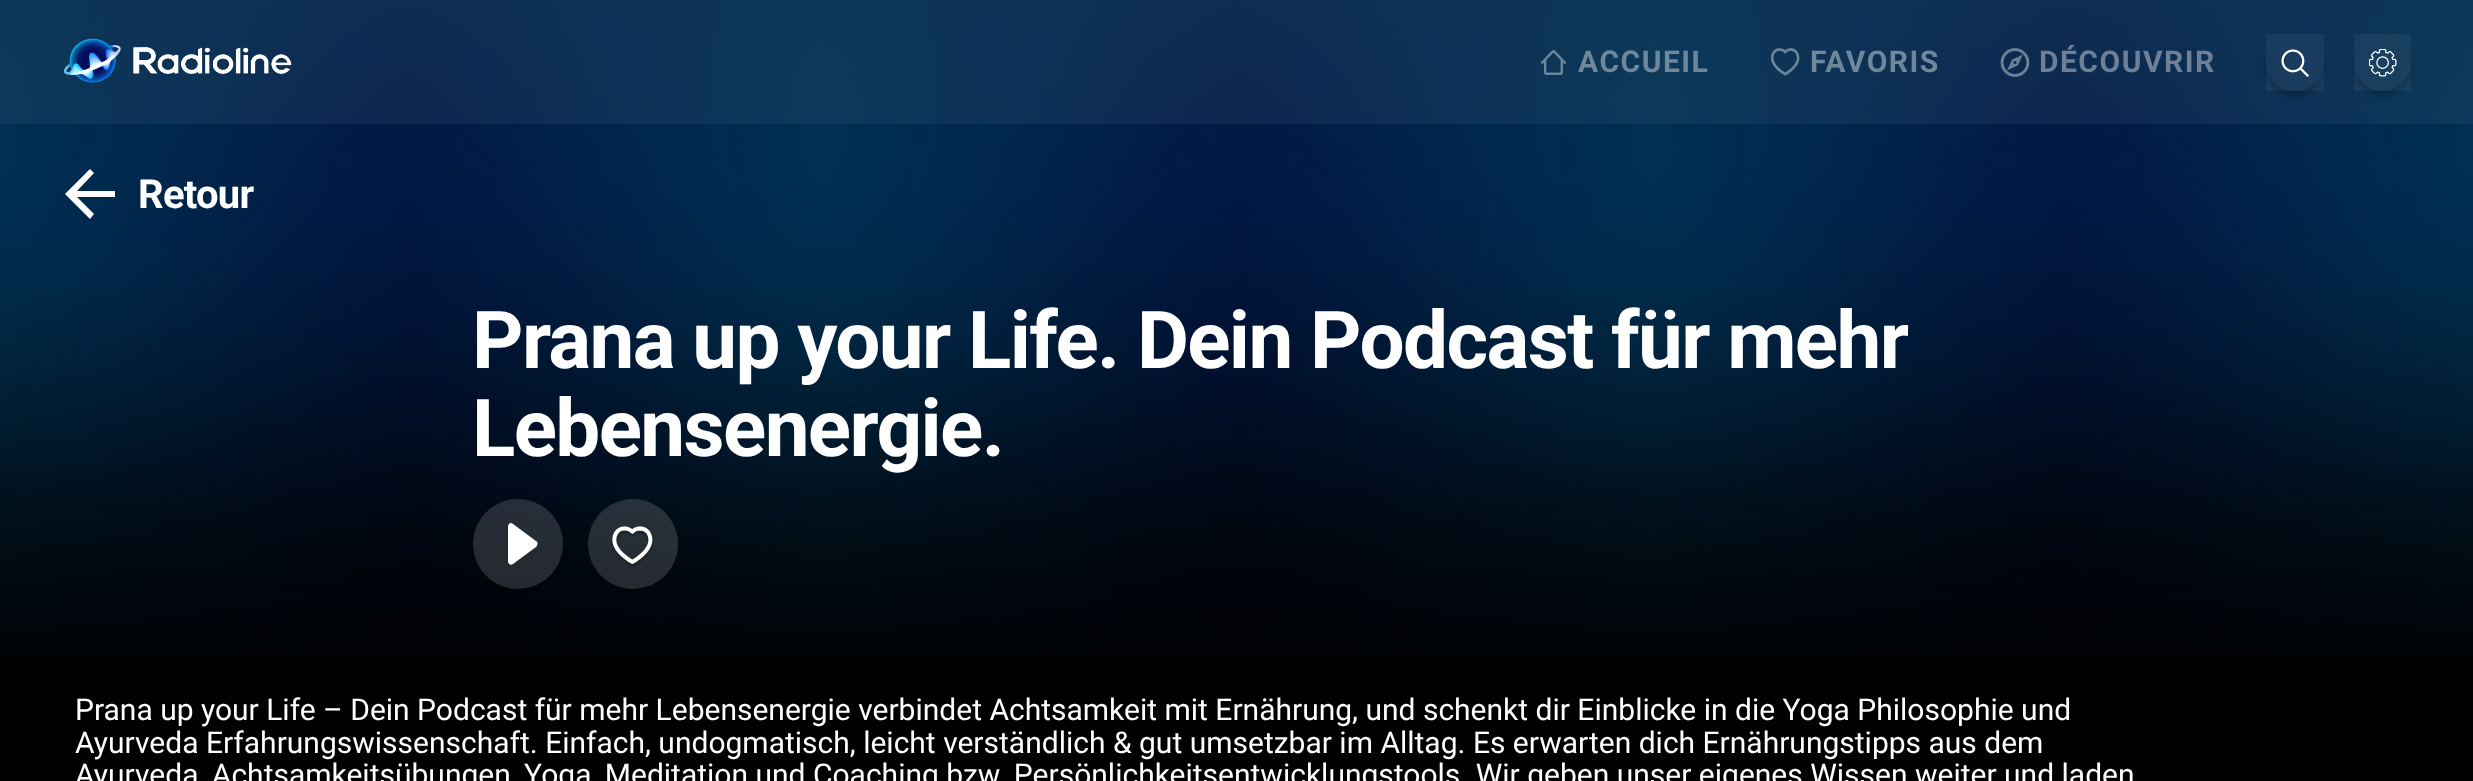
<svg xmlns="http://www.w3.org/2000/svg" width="2473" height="781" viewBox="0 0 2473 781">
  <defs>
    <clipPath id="clip1"><path d="M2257 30H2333V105H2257ZM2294.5 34H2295.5C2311 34 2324 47 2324 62.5C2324 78 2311 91 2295.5 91H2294.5C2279 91 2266 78 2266 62.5C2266 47 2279 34 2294.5 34Z" clip-rule="evenodd"/></clipPath>
    <clipPath id="clip2"><path d="M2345 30H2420V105H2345ZM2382.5 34C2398 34 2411 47 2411 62.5C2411 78 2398 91 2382.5 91C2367 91 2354 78 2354 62.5C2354 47 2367 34 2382.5 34Z" clip-rule="evenodd"/></clipPath>
  </defs>
  <rect width="100%" height="100%" fill="rgb(1,1,3)"/>
  <image x="0" y="0" width="2473" height="657" href="pic1.png"/>
  <rect x="0" y="0" width="2473" height="124" fill="rgba(255,255,255,0.05)"/>
  <image x="63" y="38" width="229" height="45" href="pic2.png"/>
  <image x="1540" y="50" width="27" height="25" href="pic3.png"/>
  <text x="1578" y="72" font-family="Roboto" font-size="30" font-weight="bold" letter-spacing="1.5" fill="rgb(110,135,155)">ACCUEIL</text>
  <image x="1771" y="48" width="29" height="28" href="pic4.png"/>
  <text x="1810" y="72" font-family="Roboto" font-size="30" font-weight="bold" letter-spacing="1.5" fill="rgb(110,135,155)">FAVORIS</text>
  <image x="2000" y="48" width="30" height="29" href="pic5.png"/>
  <text x="2039" y="72" font-family="Roboto" font-size="30" font-weight="bold" letter-spacing="1.5" fill="rgb(110,128,151)">DÉCOUVRIR</text>
  <g clip-path="url(#clip1)">
    <rect x="2266" y="39" width="58" height="57" rx="28.5" fill="rgba(0,0,0,0.25)" filter="blur(2.5px)"/>
  </g>
  <rect x="2266" y="34" width="58" height="57" fill="rgba(255,255,255,0.05)"/>
  <image x="2281" y="49" width="28" height="28" href="pic6.png"/>
  <g clip-path="url(#clip2)">
    <rect x="2354" y="39" width="57" height="57" rx="28.5" fill="rgba(0,0,0,0.25)" filter="blur(2.5px)"/>
  </g>
  <rect x="2354" y="34" width="57" height="57" fill="rgba(255,255,255,0.05)"/>
  <image x="2369" y="49" width="28" height="28" href="pic7.png"/>
  <path d="M115 191H77L94 173L90 169L65 194L90 219L94 214L77 197H115Z" fill="rgb(255,255,255)"/>
  <text x="138" y="208" font-family="Roboto" font-size="40" font-weight="bold" letter-spacing="-0.75" fill="rgb(255,255,255)">Retour</text>
  <g font-family="Roboto" font-size="80" font-weight="bold" letter-spacing="-1.6" fill="rgb(255,255,255)">
    <text>
      <tspan x="472" y="368">Prana up your Life. Dein Podcast für mehr</tspan>
      <tspan x="472" y="456">Lebensenergie.</tspan>
    </text>
  </g>
  <circle cx="518" cy="544" r="45" fill="rgba(255,255,255,0.15)"/>
  <path d="M536 541L513 524C511 522 508 523 508 527V561C508 564 511 566 513 564L536 547C538 545 538 542 536 541Z" fill="rgb(255,255,255)"/>
  <circle cx="633" cy="544" r="45" fill="rgba(255,255,255,0.15)"/>
  <image x="611" y="526" width="43" height="41" href="pic8.png"/>
  <g font-family="Roboto" font-size="30" fill="rgb(255,255,255)">
    <text>
      <tspan x="75" y="720">Prana up your Life – Dein Podcast für mehr Lebensenergie verbindet Achtsamkeit mit Ernährung, und schenkt dir Einblicke in die Yoga Philosophie und</tspan>
      <tspan x="75" y="753">Ayurveda Erfahrungswissenschaft. Einfach, undogmatisch, leicht verständlich &amp; gut umsetzbar im Alltag. Es erwarten dich Ernährungstipps aus dem</tspan>
      <tspan x="75" y="785">Ayurveda, Achtsamkeitsübungen, Yoga, Meditation und Coaching bzw. Persönlichkeitsentwicklungstools. Wir geben unser eigenes Wissen weiter und laden</tspan>
    </text>
  </g>
</svg>
